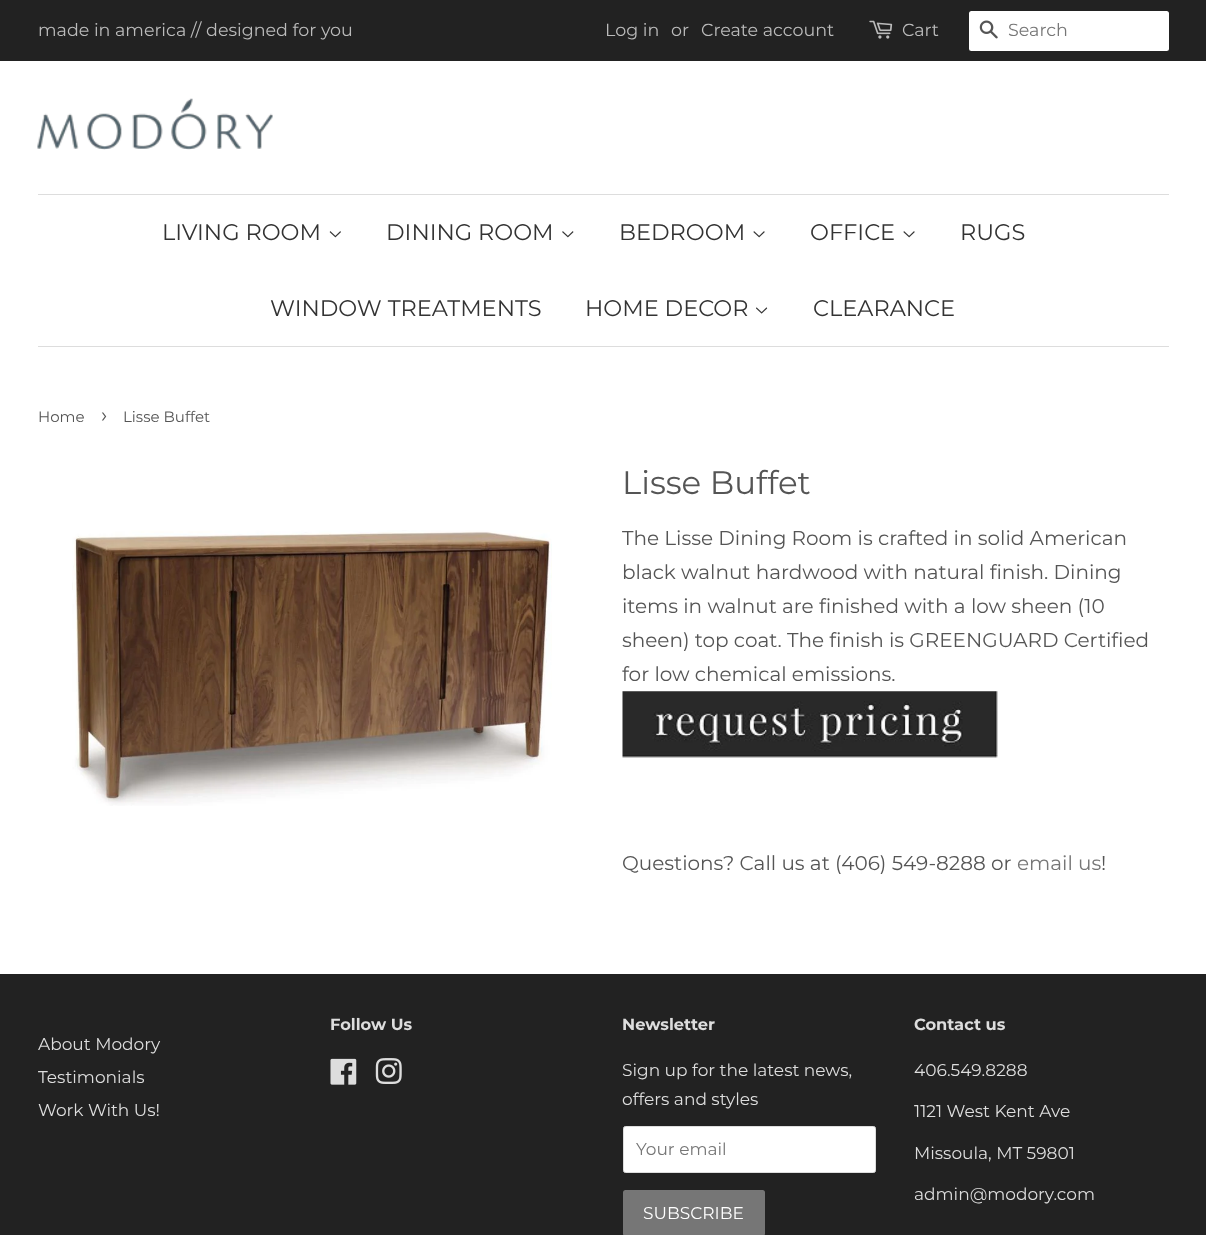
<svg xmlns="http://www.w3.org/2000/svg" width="1206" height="1235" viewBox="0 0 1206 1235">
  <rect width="100%" height="100%" fill="rgb(255,255,255)"/>
  <rect x="0" y="0" width="1206" height="61" fill="rgb(34,34,34)"/>
  <g font-family="Montserrat" font-size="17.5" fill="rgb(187,187,187)">
    <text x="38" y="36">made in america // designed for you</text>
    <text x="605" y="36">Log in</text>
    <text x="671" y="36">or</text>
    <text x="701" y="36">Create account</text>
  </g>
  <image x="869" y="20" width="24" height="19" href="pic1.png"/>
  <text x="902" y="36" font-family="Montserrat" font-size="17.5" fill="rgb(187,187,187)">Cart</text>
  <rect x="969" y="11" width="200" height="40" rx="2.5" fill="rgb(255,255,255)"/>
  <image x="979" y="20" width="19" height="19" href="pic2.png"/>
  <text x="1008" y="36" font-family="Montserrat" font-size="17.5" fill="rgb(118,118,118)">Search</text>
  <image x="37" y="98" width="236" height="52" href="pic3.png"/>
  <rect x="38" y="194" width="1131" height="1" fill="rgb(221,221,221)"/>
  <rect x="38" y="346" width="1131" height="1" fill="rgb(221,221,221)"/>
  <text x="162" y="240" font-family="Montserrat" font-size="22.5" fill="rgb(51,51,51)">LIVING ROOM</text>
  <image x="329" y="231" width="12" height="7" href="pic4.png"/>
  <text x="386" y="240" font-family="Montserrat" font-size="22.5" fill="rgb(51,51,51)">DINING ROOM</text>
  <image x="562" y="231" width="12" height="7" href="pic5.png"/>
  <text x="619" y="240" font-family="Montserrat" font-size="22.5" fill="rgb(51,51,51)">BEDROOM</text>
  <image x="753" y="231" width="12" height="7" href="pic6.png"/>
  <text x="810" y="240" font-family="Montserrat" font-size="22.5" fill="rgb(51,51,51)">OFFICE</text>
  <image x="903" y="231" width="12" height="7" href="pic6.png"/>
  <g font-family="Montserrat" font-size="22.5" fill="rgb(51,51,51)">
    <text x="960" y="240">RUGS</text>
    <text x="270" y="316">WINDOW TREATMENTS</text>
    <text x="585" y="316">HOME DECOR</text>
  </g>
  <image x="756" y="307" width="12" height="7" href="pic7.png"/>
  <text x="813" y="316" font-family="Montserrat" font-size="22.5" fill="rgb(51,51,51)">CLEARANCE</text>
  <text x="38" y="422" font-family="Montserrat" font-size="15" fill="rgb(85,85,85)">Home</text>
  <text x="101" y="422" font-family="Montserrat" font-size="21" fill="rgb(85,85,85)">›</text>
  <text x="123" y="422" font-family="Montserrat" font-size="15" fill="rgb(85,85,85)">Lisse Buffet</text>
  <image x="72" y="530" width="480" height="276" href="pic8.png"/>
  <text x="622" y="494" font-family="Montserrat" font-size="32.5" fill="rgb(85,85,85)">Lisse Buffet</text>
  <g font-family="Montserrat" font-size="20" fill="rgb(85,85,85)">
    <text>
      <tspan x="622" y="545">The Lisse Dining Room is crafted in solid American</tspan>
      <tspan x="622" y="579">black walnut hardwood with natural finish. Dining</tspan>
      <tspan x="622" y="613">items in walnut are finished with a low sheen (10</tspan>
      <tspan x="622" y="647">sheen) top coat. The finish is GREENGUARD Certified</tspan>
      <tspan x="622" y="681">for low chemical emissions.</tspan>
    </text>
  </g>
  <image x="622" y="691" width="376" height="67" href="pic9.png"/>
  <text x="622" y="870" font-family="Montserrat" font-size="20" fill="rgb(85,85,85)">Questions? Call us at (406) 549-8288 or</text>
  <text x="1017" y="870" font-family="Montserrat" font-size="20" fill="rgb(118,118,118)">email us</text>
  <text x="1101" y="870" font-family="Montserrat" font-size="20" fill="rgb(85,85,85)">!</text>
  <rect x="0" y="974" width="1206" height="261" fill="rgb(34,34,34)"/>
  <g font-family="Montserrat" font-size="17" fill="rgb(221,221,221)">
    <text>
      <tspan x="38" y="1050">About Modory</tspan>
      <tspan x="38" y="1083">Testimonials</tspan>
      <tspan x="38" y="1116">Work With Us!</tspan>
    </text>
  </g>
  <text x="330" y="1030" font-family="Montserrat" font-size="16.25" font-weight="bold" fill="rgb(221,221,221)">Follow Us</text>
  <image x="330" y="1058" width="27" height="27" href="pic10.png"/>
  <image x="375" y="1058" width="27" height="26" href="pic11.png"/>
  <text x="622" y="1030" font-family="Montserrat" font-size="16.25" font-weight="bold" fill="rgb(221,221,221)">Newsletter</text>
  <g font-family="Montserrat" font-size="17" fill="rgb(221,221,221)">
    <text>
      <tspan x="622" y="1076">Sign up for the latest news,</tspan>
      <tspan x="622" y="1105">offers and styles</tspan>
    </text>
  </g>
  <rect x="623.5" y="1126.5" width="252" height="46" rx="2" fill="rgb(255,255,255)" stroke="rgb(221,221,221)"/>
  <text x="636" y="1155" font-family="Montserrat" font-size="17" fill="rgb(118,118,118)">Your email</text>
  <rect x="623" y="1190" width="142" height="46" rx="2.5" fill="rgb(118,118,118)"/>
  <text x="643" y="1219" font-family="Montserrat" font-size="17" fill="rgb(255,255,255)">SUBSCRIBE</text>
  <text x="914" y="1030" font-family="Montserrat" font-size="16.25" font-weight="bold" fill="rgb(221,221,221)">Contact us</text>
  <g font-family="Montserrat" font-size="17" fill="rgb(221,221,221)">
    <text x="914" y="1076">406.549.8288</text>
    <text x="914" y="1117">1121 West Kent Ave</text>
    <text x="914" y="1159">Missoula, MT 59801</text>
    <text x="914" y="1200">admin@modory.com</text>
  </g>
</svg>
